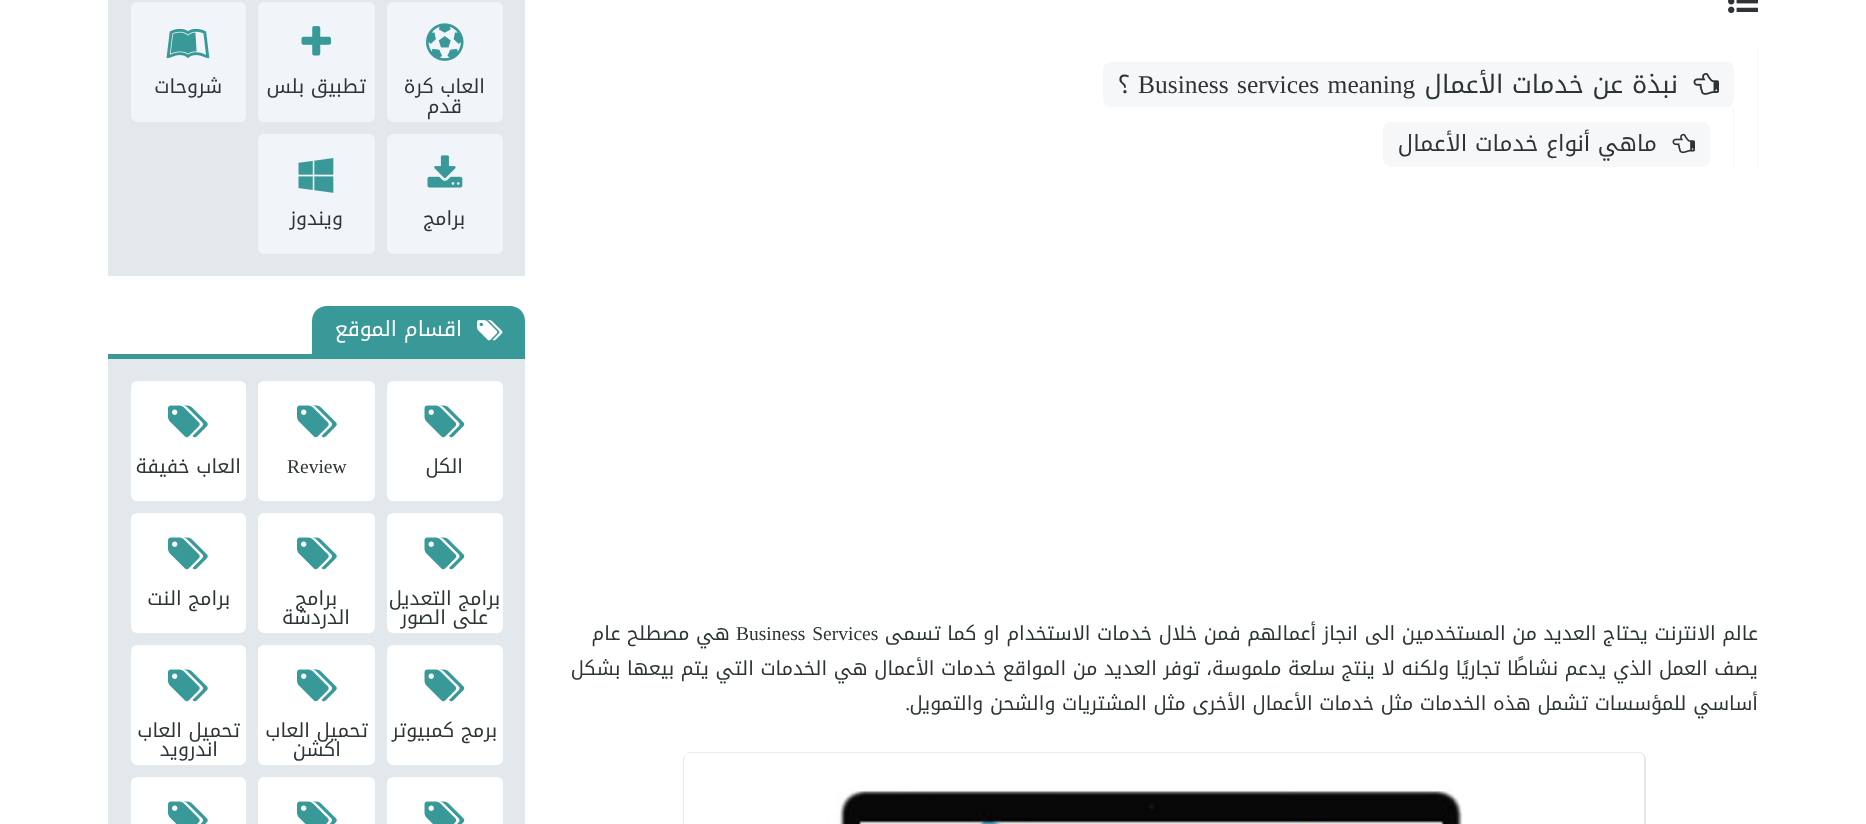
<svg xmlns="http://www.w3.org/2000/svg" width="1866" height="824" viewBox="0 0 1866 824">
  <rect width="100%" height="100%" fill="rgb(255,255,255)"/>
  <image x="1728" y="0" width="30" height="14" href="pic1.png"/>
  <rect x="1757" y="47" width="1" height="120" fill="rgb(245,247,249)"/>
  <rect x="1103" y="62" width="631" height="45" rx="8" fill="rgb(245,247,249)"/>
  <image x="1693" y="73" width="26" height="22" href="pic2.png"/>
  <text x="1678" y="93" font-family="Noto Kufi Arabic" font-size="25.5" direction="rtl" fill="rgb(45,52,54)">نبذة عن خدمات الأعمال</text>
  <text x="1138" y="93" word-spacing="2" font-family="Liberation Serif" font-size="25.5" fill="rgb(45,52,54)">Business services meaning</text>
  <text x="1130" y="93" font-family="Noto Kufi Arabic" font-size="25.5" direction="rtl" fill="rgb(45,52,54)">؟</text>
  <rect x="1733" y="107" width="1" height="60" fill="rgb(245,247,249)"/>
  <rect x="1383" y="122" width="327" height="45" rx="8" fill="rgb(245,247,249)"/>
  <image x="1672" y="133" width="23" height="21" href="pic3.png"/>
  <text x="1657" y="151" font-family="Noto Kufi Arabic" font-size="22.5" direction="rtl" fill="rgb(45,52,54)">ماهي أنواع خدمات الأعمال</text>
  <text x="1758" y="640" font-family="Noto Kufi Arabic" font-size="19.5" direction="rtl" fill="rgb(45,52,54)">عالم الانترنت يحتاج العديد من المستخدمين الى انجاز أعمالهم فمن خلال خدمات الاستخدام او كما تسمى</text>
  <text x="736" y="640" word-spacing="2" font-family="Liberation Serif" font-size="19.5" fill="rgb(45,52,54)">Business Services</text>
  <g font-family="Noto Kufi Arabic" font-size="19.5" direction="rtl" fill="rgb(45,52,54)">
    <text x="730" y="640">هي مصطلح عام</text>
    <text>
      <tspan x="1758" y="675">يصف العمل الذي يدعم نشاطًا تجاريًا ولكنه لا ينتج سلعة ملموسة، توفر العديد من المواقع خدمات الأعمال هي الخدمات التي يتم بيعها بشكل</tspan>
      <tspan x="1758" y="710">أساسي للمؤسسات تشمل هذه الخدمات مثل خدمات الأعمال الأخرى مثل المشتريات والشحن والتمويل</tspan>
    </text>
  </g>
  <text x="910" y="710" font-family="Liberation Serif" font-size="19.5" direction="rtl" fill="rgb(45,52,54)">.</text>
  <rect x="684" y="753" width="961" height="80" rx="7" fill="none" stroke="rgb(226,232,236)" stroke-width="2"/>
  <image x="684" y="752" width="960" height="72" href="pic4.png"/>
  <rect x="108" y="0" width="417" height="276" fill="rgb(226,232,236)"/>
  <rect x="387" y="2" width="116" height="120" rx="6" fill="rgb(241,245,249)"/>
  <image x="426" y="23" width="38" height="38" href="pic5.png"/>
  <g font-family="Noto Kufi Arabic" font-size="19.5" direction="rtl" fill="rgb(45,52,54)">
    <text x="485" y="93">العاب كرة</text>
    <text x="462" y="113">قدم</text>
  </g>
  <rect x="258" y="2" width="117" height="120" rx="6" fill="rgb(241,245,249)"/>
  <image x="301" y="26" width="30" height="30" href="pic6.png"/>
  <text x="366" y="93" font-family="Noto Kufi Arabic" font-size="19.5" direction="rtl" fill="rgb(45,52,54)">تطبيق بلس</text>
  <rect x="131" y="2" width="115" height="120" rx="6" fill="rgb(241,245,249)"/>
  <image x="166" y="28" width="44" height="31" href="pic7.png"/>
  <text x="222" y="93" font-family="Noto Kufi Arabic" font-size="19.5" direction="rtl" fill="rgb(45,52,54)">شروحات</text>
  <rect x="387" y="134" width="116" height="120" rx="6" fill="rgb(241,245,249)"/>
  <image x="427" y="155" width="36" height="33" href="pic8.png"/>
  <text x="465" y="225" font-family="Noto Kufi Arabic" font-size="19.5" direction="rtl" fill="rgb(45,52,54)">برامج</text>
  <rect x="258" y="134" width="117" height="120" rx="6" fill="rgb(241,245,249)"/>
  <image x="298" y="158" width="36" height="35" href="pic9.png"/>
  <text x="343" y="225" font-family="Noto Kufi Arabic" font-size="19.5" direction="rtl" fill="rgb(45,52,54)">ويندوز</text>
  <path d="M327 306H510C518.5 306 525 312.5 525 321V354H312V321C312 312.5 318.5 306 327 306Z" fill="rgb(57,153,153)"/>
  <image x="477" y="320" width="26" height="21" href="pic10.png"/>
  <text x="462" y="336" font-family="Noto Kufi Arabic" font-size="21" direction="rtl" fill="rgb(255,255,255)">اقسام الموقع</text>
  <rect x="108" y="359" width="417" height="465" fill="rgb(226,232,236)"/>
  <rect x="108" y="354" width="417" height="5" fill="rgb(57,153,153)"/>
  <rect x="387" y="381" width="116" height="120" rx="6" fill="rgb(255,255,255)"/>
  <image x="424" y="405" width="41" height="33" href="pic11.png"/>
  <text x="463" y="473" font-family="Noto Kufi Arabic" font-size="19.5" direction="rtl" fill="rgb(45,52,54)">الكل</text>
  <rect x="258" y="381" width="117" height="120" rx="6" fill="rgb(255,255,255)"/>
  <image x="297" y="405" width="40" height="33" href="pic12.png"/>
  <text x="287" y="473" font-family="Liberation Serif" font-size="19.5" fill="rgb(45,52,54)">Review</text>
  <rect x="131" y="381" width="115" height="120" rx="6" fill="rgb(255,255,255)"/>
  <image x="168" y="405" width="40" height="33" href="pic12.png"/>
  <text x="241" y="473" font-family="Noto Kufi Arabic" font-size="19.5" direction="rtl" fill="rgb(45,52,54)">العاب خفيفة</text>
  <rect x="387" y="513" width="116" height="120" rx="6" fill="rgb(255,255,255)"/>
  <image x="424" y="537" width="41" height="33" href="pic11.png"/>
  <g font-family="Noto Kufi Arabic" font-size="19.5" direction="rtl" fill="rgb(45,52,54)">
    <text x="500" y="605">برامج التعديل</text>
    <text x="488" y="624">على الصور</text>
  </g>
  <rect x="258" y="513" width="117" height="120" rx="6" fill="rgb(255,255,255)"/>
  <image x="297" y="537" width="40" height="33" href="pic12.png"/>
  <g font-family="Noto Kufi Arabic" font-size="19.5" direction="rtl" fill="rgb(45,52,54)">
    <text x="337" y="605">برامج</text>
    <text x="350" y="624">الدردشة</text>
  </g>
  <rect x="131" y="513" width="115" height="120" rx="6" fill="rgb(255,255,255)"/>
  <image x="168" y="537" width="40" height="33" href="pic12.png"/>
  <text x="230" y="605" font-family="Noto Kufi Arabic" font-size="19.5" direction="rtl" fill="rgb(45,52,54)">برامج النت</text>
  <rect x="387" y="645" width="116" height="120" rx="6" fill="rgb(255,255,255)"/>
  <image x="424" y="669" width="41" height="33" href="pic11.png"/>
  <text x="497" y="737" font-family="Noto Kufi Arabic" font-size="19.5" direction="rtl" fill="rgb(45,52,54)">برمج كمبيوتر</text>
  <rect x="258" y="645" width="117" height="120" rx="6" fill="rgb(255,255,255)"/>
  <image x="297" y="669" width="40" height="33" href="pic12.png"/>
  <g font-family="Noto Kufi Arabic" font-size="19.5" direction="rtl" fill="rgb(45,52,54)">
    <text x="368" y="737">تحميل العاب</text>
    <text x="341" y="756">اكشن</text>
  </g>
  <rect x="131" y="645" width="115" height="120" rx="6" fill="rgb(255,255,255)"/>
  <image x="168" y="669" width="40" height="33" href="pic12.png"/>
  <g font-family="Noto Kufi Arabic" font-size="19.5" direction="rtl" fill="rgb(45,52,54)">
    <text x="240" y="737">تحميل العاب</text>
    <text x="218" y="756">اندرويد</text>
  </g>
  <rect x="387" y="777" width="116" height="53" rx="6" fill="rgb(255,255,255)"/>
  <image x="424" y="801" width="41" height="23" href="pic13.png"/>
  <rect x="258" y="777" width="117" height="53" rx="6" fill="rgb(255,255,255)"/>
  <image x="297" y="801" width="40" height="23" href="pic14.png"/>
  <rect x="131" y="777" width="115" height="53" rx="6" fill="rgb(255,255,255)"/>
  <image x="168" y="801" width="40" height="23" href="pic14.png"/>
</svg>
